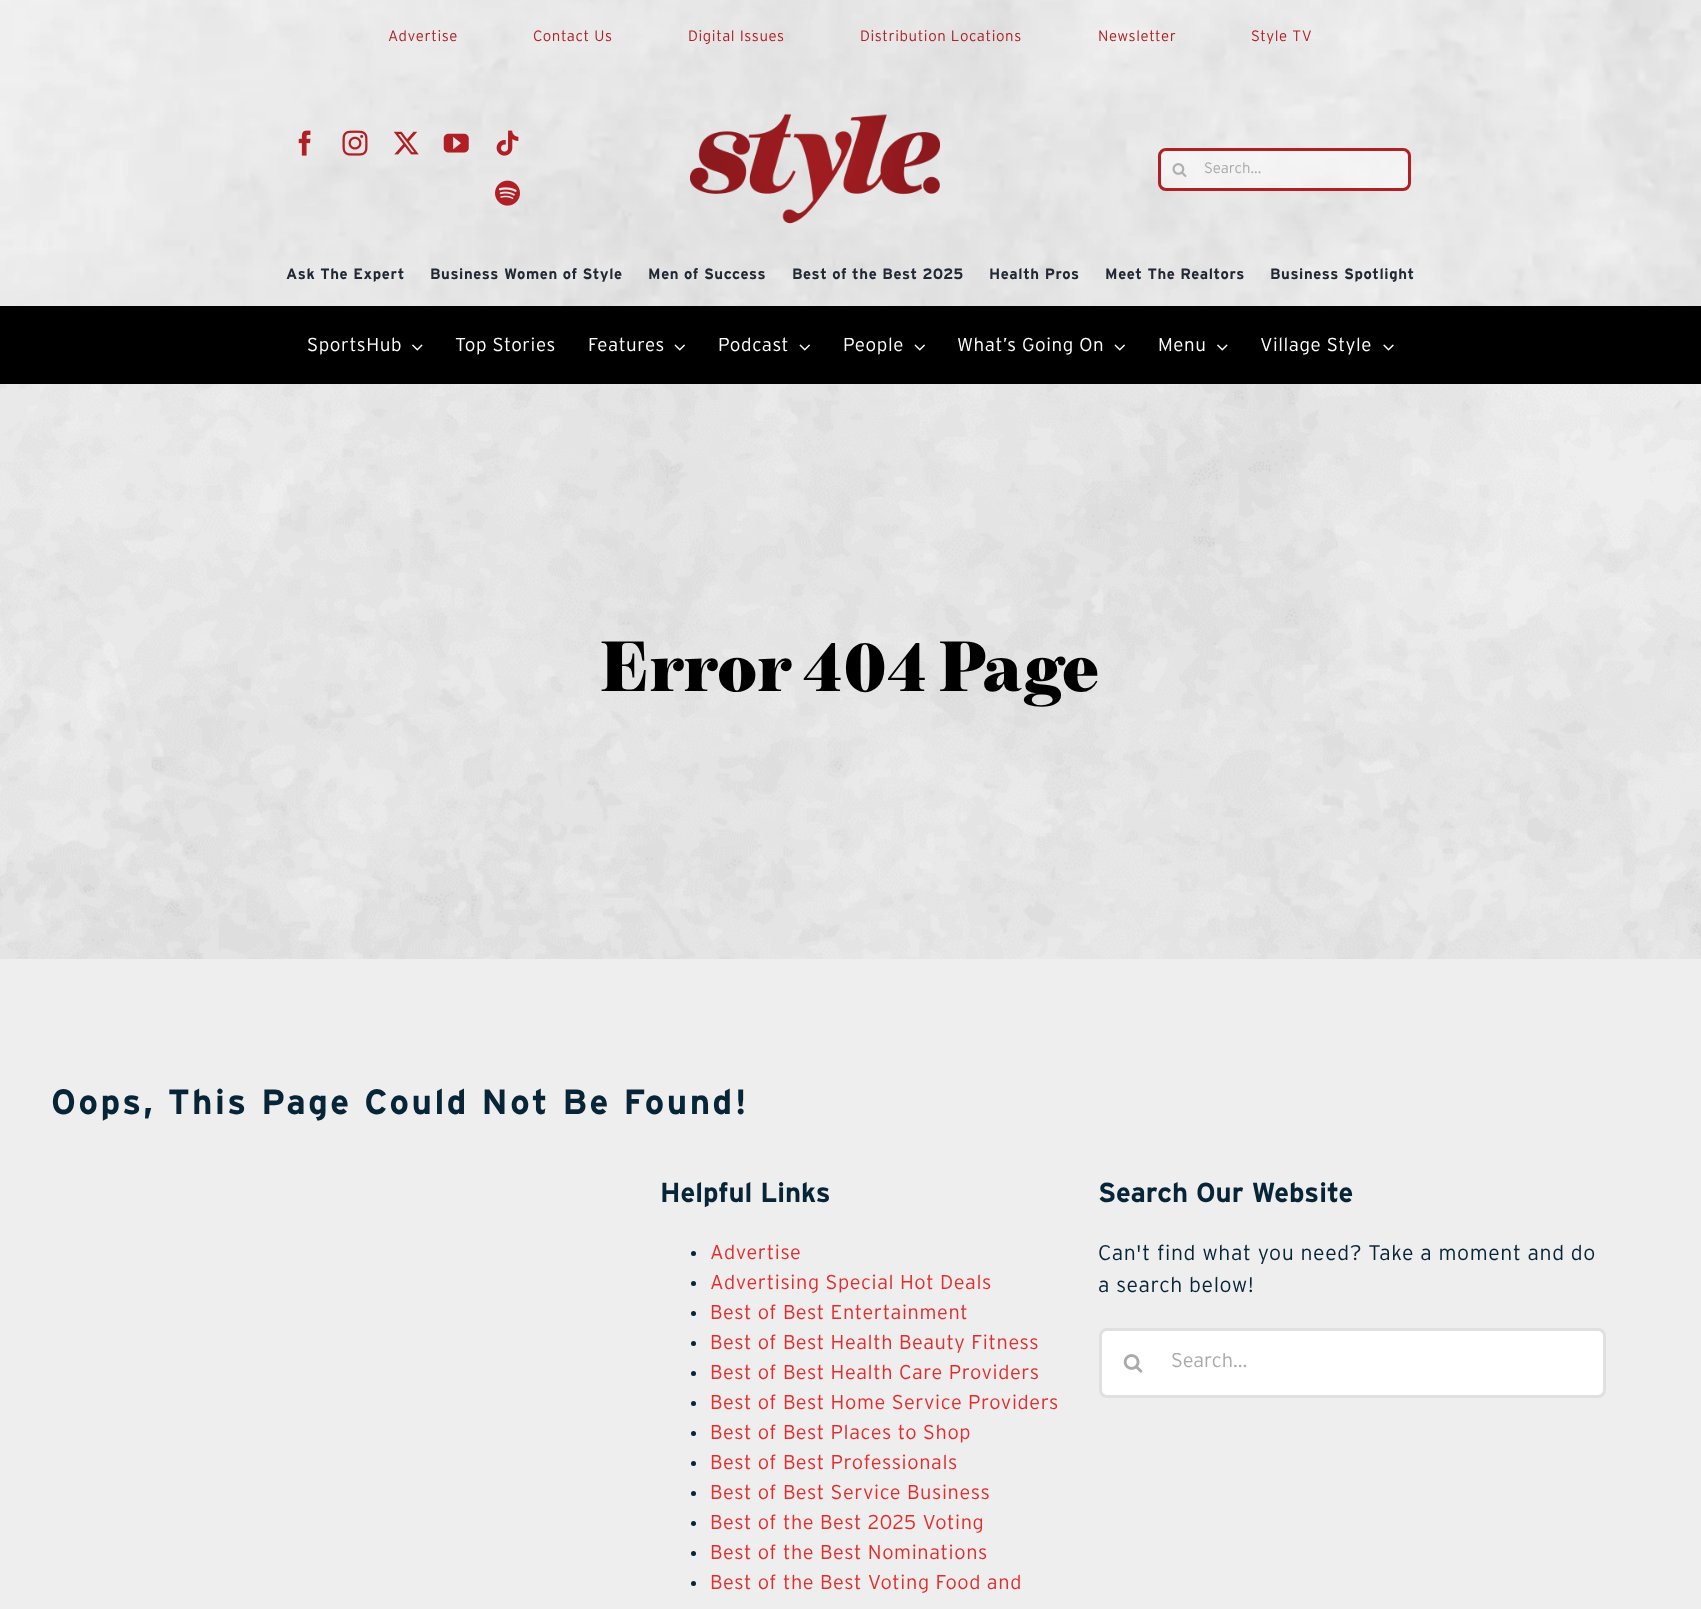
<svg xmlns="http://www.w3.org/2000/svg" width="1701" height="1609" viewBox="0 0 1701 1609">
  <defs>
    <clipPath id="clip1"><rect x="1171" y="1353" width="395" height="20"/></clipPath>
  </defs>
  <rect width="100%" height="100%" fill="rgb(238,238,238)"/>
  <image x="0" y="0" width="1701" height="306" href="pic1.png"/>
  <g font-family="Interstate" font-size="15" font-weight="300" letter-spacing="0.6" fill="rgb(175,31,36)">
    <text x="388" y="41">Advertise</text>
    <text x="533" y="41">Contact Us</text>
    <text x="688" y="41">Digital Issues</text>
    <text x="860" y="41">Distribution Locations</text>
    <text x="1098" y="41">Newsletter</text>
    <text x="1251" y="41">Style TV</text>
  </g>
  <image x="298" y="130" width="13" height="26" href="pic2.png"/>
  <image x="342" y="130" width="26" height="26" href="pic3.png"/>
  <image x="393" y="131" width="26" height="24" href="pic4.png"/>
  <image x="443" y="133" width="26" height="20" href="pic5.png"/>
  <image x="496" y="130" width="23" height="26" href="pic6.png"/>
  <image x="495" y="180" width="25" height="26" href="pic7.png"/>
  <image x="690" y="113" width="250" height="111" href="pic8.png"/>
  <rect x="1159.5" y="149.5" width="250" height="40" rx="6.5" fill="rgba(255,255,255,0.49)" stroke="rgb(175,31,36)" stroke-width="3"/>
  <image x="1172" y="163" width="15" height="14" href="pic9.png"/>
  <text x="1204" y="173" font-family="Interstate" font-size="15" font-weight="300" fill="rgb(170,170,170)">Search...</text>
  <g font-family="Interstate" font-size="15" font-weight="bold" letter-spacing="0.6" fill="rgb(33,41,52)">
    <text x="286" y="279">Ask The Expert</text>
    <text x="430" y="279">Business Women of Style</text>
    <text x="648" y="279">Men of Success</text>
    <text x="792" y="279">Best of the Best 2025</text>
    <text x="989" y="279">Health Pros</text>
    <text x="1105" y="279">Meet The Realtors</text>
    <text x="1270" y="279">Business Spotlight</text>
  </g>
  <rect x="0" y="306" width="1701" height="78" fill="rgb(0,0,0)"/>
  <text x="307" y="351" font-family="Interstate" font-size="18.75" font-weight="300" letter-spacing="0.6" fill="rgb(255,255,255)">SportsHub</text>
  <image x="412" y="344" width="11" height="7" href="pic10.png"/>
  <g font-family="Interstate" font-size="18.75" font-weight="300" letter-spacing="0.6" fill="rgb(255,255,255)">
    <text x="455" y="351">Top Stories</text>
    <text x="588" y="351">Features</text>
  </g>
  <image x="674" y="344" width="11" height="7" href="pic11.png"/>
  <text x="718" y="351" font-family="Interstate" font-size="18.75" font-weight="300" letter-spacing="0.6" fill="rgb(255,255,255)">Podcast</text>
  <image x="799" y="344" width="11" height="7" href="pic11.png"/>
  <text x="843" y="351" font-family="Interstate" font-size="18.75" font-weight="300" letter-spacing="0.6" fill="rgb(255,255,255)">People</text>
  <image x="914" y="344" width="11" height="7" href="pic11.png"/>
  <text x="957" y="351" font-family="Interstate" font-size="18.75" font-weight="300" letter-spacing="0.6" fill="rgb(255,255,255)">What’s Going On</text>
  <image x="1114" y="344" width="11" height="7" href="pic11.png"/>
  <text x="1158" y="351" font-family="Interstate" font-size="18.75" font-weight="300" letter-spacing="0.6" fill="rgb(255,255,255)">Menu</text>
  <image x="1217" y="344" width="11" height="7" href="pic10.png"/>
  <text x="1260" y="351" font-family="Interstate" font-size="18.75" font-weight="300" letter-spacing="0.6" fill="rgb(255,255,255)">Village Style</text>
  <image x="1383" y="344" width="11" height="7" href="pic12.png"/>
  <image x="0" y="384" width="1701" height="575" href="pic13.png"/>
  <text x="601" y="691" font-family="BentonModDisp" font-size="72.5" font-weight="900" letter-spacing="1.25" fill="rgb(0,0,0)">Error 404 Page</text>
  <text x="51" y="1114" font-family="Interstate" font-size="35" font-weight="bold" letter-spacing="2.5" fill="rgb(7,37,54)">Oops, This Page Could Not Be Found!</text>
  <text x="660" y="1202" font-family="Interstate" font-size="27.5" font-weight="bold" fill="rgb(7,37,54)">Helpful Links</text>
  <circle cx="693.5" cy="1253.5" r="2.5" fill="rgb(7,37,54)"/>
  <text x="710" y="1259" font-family="Interstate" font-size="20" font-weight="300" letter-spacing="0.6" fill="rgb(228,44,45)">Advertise</text>
  <circle cx="693.5" cy="1283.5" r="2.5" fill="rgb(7,37,54)"/>
  <text x="710" y="1289" font-family="Interstate" font-size="20" font-weight="300" letter-spacing="0.6" fill="rgb(228,44,45)">Advertising Special Hot Deals</text>
  <circle cx="693.5" cy="1313.5" r="2.5" fill="rgb(7,37,54)"/>
  <text x="710" y="1319" font-family="Interstate" font-size="20" font-weight="300" letter-spacing="0.6" fill="rgb(228,44,45)">Best of Best Entertainment</text>
  <circle cx="693.5" cy="1343.5" r="2.5" fill="rgb(7,37,54)"/>
  <text x="710" y="1349" font-family="Interstate" font-size="20" font-weight="300" letter-spacing="0.6" fill="rgb(228,44,45)">Best of Best Health Beauty Fitness</text>
  <circle cx="693.5" cy="1373.5" r="2.5" fill="rgb(7,37,54)"/>
  <text x="710" y="1379" font-family="Interstate" font-size="20" font-weight="300" letter-spacing="0.6" fill="rgb(228,44,45)">Best of Best Health Care Providers</text>
  <circle cx="693.5" cy="1403.5" r="2.5" fill="rgb(7,37,54)"/>
  <text x="710" y="1409" font-family="Interstate" font-size="20" font-weight="300" letter-spacing="0.6" fill="rgb(228,44,45)">Best of Best Home Service Providers</text>
  <circle cx="693.5" cy="1433.5" r="2.5" fill="rgb(7,37,54)"/>
  <text x="710" y="1439" font-family="Interstate" font-size="20" font-weight="300" letter-spacing="0.6" fill="rgb(228,44,45)">Best of Best Places to Shop</text>
  <circle cx="693.5" cy="1463.5" r="2.5" fill="rgb(7,37,54)"/>
  <text x="710" y="1469" font-family="Interstate" font-size="20" font-weight="300" letter-spacing="0.6" fill="rgb(228,44,45)">Best of Best Professionals</text>
  <circle cx="693.5" cy="1493.5" r="2.5" fill="rgb(7,37,54)"/>
  <text x="710" y="1499" font-family="Interstate" font-size="20" font-weight="300" letter-spacing="0.6" fill="rgb(228,44,45)">Best of Best Service Business</text>
  <circle cx="693.5" cy="1523.5" r="2.5" fill="rgb(7,37,54)"/>
  <text x="710" y="1529" font-family="Interstate" font-size="20" font-weight="300" letter-spacing="0.6" fill="rgb(228,44,45)">Best of the Best 2025 Voting</text>
  <circle cx="693.5" cy="1553.5" r="2.5" fill="rgb(7,37,54)"/>
  <text x="710" y="1559" font-family="Interstate" font-size="20" font-weight="300" letter-spacing="0.6" fill="rgb(228,44,45)">Best of the Best Nominations</text>
  <circle cx="693.5" cy="1583.5" r="2.5" fill="rgb(7,37,54)"/>
  <text x="710" y="1589" font-family="Interstate" font-size="20" font-weight="300" letter-spacing="0.6" fill="rgb(228,44,45)">Best of the Best Voting Food and</text>
  <text x="1098" y="1202" font-family="Interstate" font-size="27.5" font-weight="bold" fill="rgb(7,37,54)">Search Our Website</text>
  <g font-family="Interstate" font-size="21.25" font-weight="300" letter-spacing="0.6" fill="rgb(7,37,54)">
    <text>
      <tspan x="1098" y="1260">Can't find what you need? Take a moment and do</tspan>
      <tspan x="1098" y="1292">a search below!</tspan>
    </text>
  </g>
  <rect x="1100.5" y="1329.5" width="504" height="67" rx="6.5" fill="rgb(255,255,255)" stroke="rgb(224,224,222)" stroke-width="3"/>
  <image x="1123" y="1354" width="20" height="19" href="pic14.png"/>
  <g clip-path="url(#clip1)">
    <text x="1171" y="1367" font-family="Interstate" font-size="20" font-weight="300" fill="rgb(170,170,170)">Search...</text>
  </g>
</svg>
